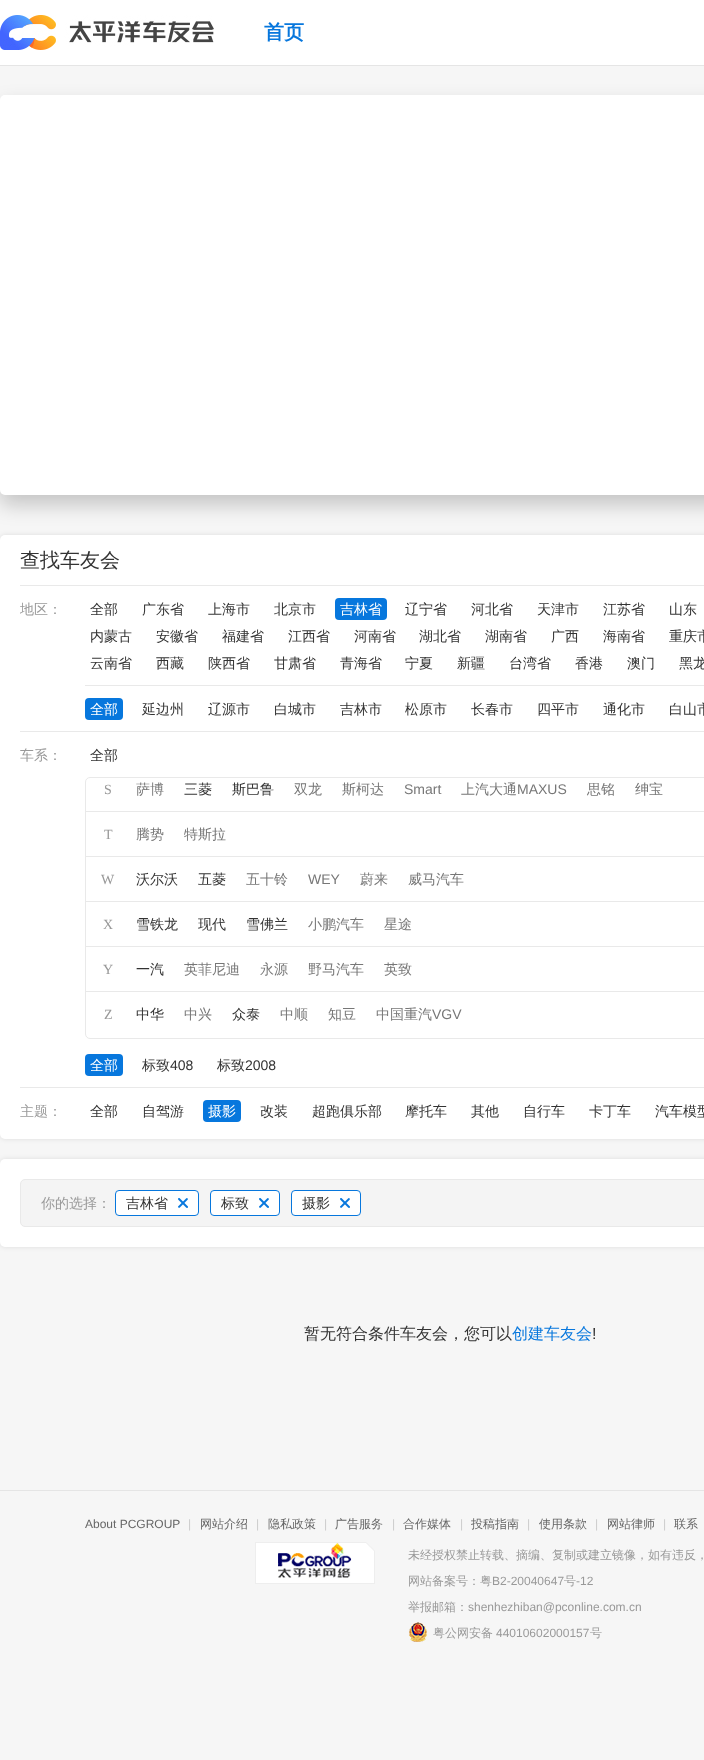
<svg xmlns="http://www.w3.org/2000/svg" width="704" height="1760" viewBox="0 0 704 1760">
  <rect width="100%" height="100%" fill="rgb(246,246,246)"/>
  <rect x="0" y="0" width="704" height="65" fill="rgb(255,255,255)"/>
  <rect x="0" y="65" width="704" height="1" fill="rgb(229,229,229)"/>
  <image x="0" y="15" width="214" height="35" href="pic1.png"/>
  <text x="264" y="39" font-family="WenQuanYi Zen Hei" font-size="20" font-weight="bold" fill="rgb(7,119,221)">首页</text>
  <rect x="0" y="535" width="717" height="604" rx="5" fill="rgba(0,0,0,0.1)" filter="blur(2.5px)"/>
  <rect x="0" y="535" width="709" height="604" rx="5" fill="rgb(255,255,255)"/>
  <rect x="0" y="105" width="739" height="400" rx="5" fill="rgba(0,0,0,0.2)" filter="blur(10px)"/>
  <image x="0" y="95" width="704" height="400" href="pic2.png"/>
  <text x="20" y="567" font-family="WenQuanYi Zen Hei" font-size="20" font-weight="500" fill="rgb(51,51,51)">查找车友会</text>
  <rect x="20" y="585" width="684" height="1" fill="rgb(233,233,233)"/>
  <text x="20" y="614" font-family="WenQuanYi Zen Hei" font-size="14" font-weight="500" fill="rgb(153,153,153)">地区：</text>
  <g font-family="WenQuanYi Zen Hei" font-size="14" font-weight="500" fill="rgb(51,51,51)">
    <text x="90" y="614">全部</text>
    <text x="142" y="614">广东省</text>
    <text x="208" y="614">上海市</text>
    <text x="274" y="614">北京市</text>
  </g>
  <rect x="335" y="598" width="52" height="22" rx="4" fill="rgb(7,119,221)"/>
  <text x="340" y="614" font-family="WenQuanYi Zen Hei" font-size="14" font-weight="500" fill="rgb(255,255,255)">吉林省</text>
  <g font-family="WenQuanYi Zen Hei" font-size="14" font-weight="500" fill="rgb(51,51,51)">
    <text x="405" y="614">辽宁省</text>
    <text x="471" y="614">河北省</text>
    <text x="537" y="614">天津市</text>
    <text x="603" y="614">江苏省</text>
    <text x="669" y="614">山东</text>
    <text x="90" y="641">内蒙古</text>
    <text x="156" y="641">安徽省</text>
    <text x="222" y="641">福建省</text>
    <text x="288" y="641">江西省</text>
    <text x="354" y="641">河南省</text>
    <text x="419" y="641">湖北省</text>
    <text x="485" y="641">湖南省</text>
    <text x="551" y="641">广西</text>
    <text x="603" y="641">海南省</text>
    <text x="669" y="641">重庆市</text>
    <text x="90" y="668">云南省</text>
    <text x="156" y="668">西藏</text>
    <text x="208" y="668">陕西省</text>
    <text x="274" y="668">甘肃省</text>
    <text x="340" y="668">青海省</text>
    <text x="405" y="668">宁夏</text>
    <text x="457" y="668">新疆</text>
    <text x="509" y="668">台湾省</text>
    <text x="575" y="668">香港</text>
    <text x="627" y="668">澳门</text>
    <text x="679" y="668">黑龙</text>
  </g>
  <rect x="85" y="685" width="619" height="1" fill="rgb(233,233,233)"/>
  <rect x="85" y="698" width="38" height="22" rx="4" fill="rgb(7,119,221)"/>
  <text x="90" y="714" font-family="WenQuanYi Zen Hei" font-size="14" font-weight="500" fill="rgb(255,255,255)">全部</text>
  <g font-family="WenQuanYi Zen Hei" font-size="14" font-weight="500" fill="rgb(51,51,51)">
    <text x="142" y="714">延边州</text>
    <text x="208" y="714">辽源市</text>
    <text x="274" y="714">白城市</text>
    <text x="340" y="714">吉林市</text>
    <text x="405" y="714">松原市</text>
    <text x="471" y="714">长春市</text>
    <text x="537" y="714">四平市</text>
    <text x="603" y="714">通化市</text>
    <text x="669" y="714">白山市</text>
  </g>
  <rect x="20" y="731" width="684" height="1" fill="rgb(233,233,233)"/>
  <text x="20" y="760" font-family="WenQuanYi Zen Hei" font-size="14" font-weight="500" fill="rgb(153,153,153)">车系：</text>
  <text x="90" y="760" font-family="WenQuanYi Zen Hei" font-size="14" font-weight="500" fill="rgb(51,51,51)">全部</text>
  <rect x="85.5" y="777.5" width="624" height="261" rx="4.5" fill="none" stroke="rgb(233,233,233)"/>
  <text x="104" y="794" font-family="Liberation Serif" font-size="14" fill="rgb(153,153,153)">S</text>
  <text x="136" y="794" font-family="WenQuanYi Zen Hei" font-size="14" font-weight="500" fill="rgb(119,119,119)">萨博</text>
  <g font-family="WenQuanYi Zen Hei" font-size="14" font-weight="500" fill="rgb(51,51,51)">
    <text x="184" y="794">三菱</text>
    <text x="232" y="794">斯巴鲁</text>
  </g>
  <g font-family="WenQuanYi Zen Hei" font-size="14" font-weight="500" fill="rgb(119,119,119)">
    <text x="294" y="794">双龙</text>
    <text x="342" y="794">斯柯达</text>
  </g>
  <text x="404" y="794" font-family="Liberation Sans" font-size="14" fill="rgb(119,119,119)">Smart</text>
  <text x="461" y="794" font-family="WenQuanYi Zen Hei" font-size="14" font-weight="500" fill="rgb(119,119,119)">上汽大通</text>
  <text x="517" y="794" font-family="Liberation Sans" font-size="14" fill="rgb(119,119,119)">MAXUS</text>
  <g font-family="WenQuanYi Zen Hei" font-size="14" font-weight="500" fill="rgb(119,119,119)">
    <text x="587" y="794">思铭</text>
    <text x="635" y="794">绅宝</text>
  </g>
  <rect x="86" y="811" width="618" height="1" fill="rgb(233,233,233)"/>
  <text x="104" y="839" font-family="Liberation Serif" font-size="14" fill="rgb(153,153,153)">T</text>
  <g font-family="WenQuanYi Zen Hei" font-size="14" font-weight="500" fill="rgb(119,119,119)">
    <text x="136" y="839">腾势</text>
    <text x="184" y="839">特斯拉</text>
  </g>
  <rect x="86" y="856" width="618" height="1" fill="rgb(233,233,233)"/>
  <text x="101" y="884" font-family="Liberation Serif" font-size="14" fill="rgb(153,153,153)">W</text>
  <g font-family="WenQuanYi Zen Hei" font-size="14" font-weight="500" fill="rgb(51,51,51)">
    <text x="136" y="884">沃尔沃</text>
    <text x="198" y="884">五菱</text>
  </g>
  <text x="246" y="884" font-family="WenQuanYi Zen Hei" font-size="14" font-weight="500" fill="rgb(119,119,119)">五十铃</text>
  <text x="308" y="884" font-family="Liberation Sans" font-size="14" fill="rgb(119,119,119)">WEY</text>
  <g font-family="WenQuanYi Zen Hei" font-size="14" font-weight="500" fill="rgb(119,119,119)">
    <text x="360" y="884">蔚来</text>
    <text x="408" y="884">威马汽车</text>
  </g>
  <rect x="86" y="901" width="618" height="1" fill="rgb(233,233,233)"/>
  <text x="103" y="929" font-family="Liberation Serif" font-size="14" fill="rgb(153,153,153)">X</text>
  <g font-family="WenQuanYi Zen Hei" font-size="14" font-weight="500" fill="rgb(51,51,51)">
    <text x="136" y="929">雪铁龙</text>
    <text x="198" y="929">现代</text>
    <text x="246" y="929">雪佛兰</text>
  </g>
  <g font-family="WenQuanYi Zen Hei" font-size="14" font-weight="500" fill="rgb(119,119,119)">
    <text x="308" y="929">小鹏汽车</text>
    <text x="384" y="929">星途</text>
  </g>
  <rect x="86" y="946" width="618" height="1" fill="rgb(233,233,233)"/>
  <text x="103" y="974" font-family="Liberation Serif" font-size="14" fill="rgb(153,153,153)">Y</text>
  <text x="136" y="974" font-family="WenQuanYi Zen Hei" font-size="14" font-weight="500" fill="rgb(51,51,51)">一汽</text>
  <g font-family="WenQuanYi Zen Hei" font-size="14" font-weight="500" fill="rgb(119,119,119)">
    <text x="184" y="974">英菲尼迪</text>
    <text x="260" y="974">永源</text>
    <text x="308" y="974">野马汽车</text>
    <text x="384" y="974">英致</text>
  </g>
  <rect x="86" y="991" width="618" height="1" fill="rgb(233,233,233)"/>
  <text x="104" y="1019" font-family="Liberation Serif" font-size="14" fill="rgb(153,153,153)">Z</text>
  <text x="136" y="1019" font-family="WenQuanYi Zen Hei" font-size="14" font-weight="500" fill="rgb(51,51,51)">中华</text>
  <text x="184" y="1019" font-family="WenQuanYi Zen Hei" font-size="14" font-weight="500" fill="rgb(119,119,119)">中兴</text>
  <text x="232" y="1019" font-family="WenQuanYi Zen Hei" font-size="14" font-weight="500" fill="rgb(51,51,51)">众泰</text>
  <g font-family="WenQuanYi Zen Hei" font-size="14" font-weight="500" fill="rgb(119,119,119)">
    <text x="280" y="1019">中顺</text>
    <text x="328" y="1019">知豆</text>
    <text x="376" y="1019">中国重汽</text>
  </g>
  <text x="432" y="1019" font-family="Liberation Sans" font-size="14" fill="rgb(119,119,119)">VGV</text>
  <rect x="85" y="1054" width="38" height="22" rx="4" fill="rgb(7,119,221)"/>
  <text x="90" y="1070" font-family="WenQuanYi Zen Hei" font-size="14" font-weight="500" fill="rgb(255,255,255)">全部</text>
  <text x="142" y="1070" font-family="WenQuanYi Zen Hei" font-size="14" font-weight="500" fill="rgb(51,51,51)">标致</text>
  <text x="170" y="1070" font-family="Liberation Sans" font-size="14" fill="rgb(51,51,51)">408</text>
  <text x="217" y="1070" font-family="WenQuanYi Zen Hei" font-size="14" font-weight="500" fill="rgb(51,51,51)">标致</text>
  <text x="245" y="1070" font-family="Liberation Sans" font-size="14" fill="rgb(51,51,51)">2008</text>
  <rect x="20" y="1087" width="684" height="1" fill="rgb(233,233,233)"/>
  <text x="20" y="1116" font-family="WenQuanYi Zen Hei" font-size="14" font-weight="500" fill="rgb(153,153,153)">主题：</text>
  <g font-family="WenQuanYi Zen Hei" font-size="14" font-weight="500" fill="rgb(51,51,51)">
    <text x="90" y="1116">全部</text>
    <text x="142" y="1116">自驾游</text>
  </g>
  <rect x="203" y="1100" width="38" height="22" rx="4" fill="rgb(7,119,221)"/>
  <text x="208" y="1116" font-family="WenQuanYi Zen Hei" font-size="14" font-weight="500" fill="rgb(255,255,255)">摄影</text>
  <g font-family="WenQuanYi Zen Hei" font-size="14" font-weight="500" fill="rgb(51,51,51)">
    <text x="260" y="1116">改装</text>
    <text x="312" y="1116">超跑俱乐部</text>
    <text x="405" y="1116">摩托车</text>
    <text x="471" y="1116">其他</text>
    <text x="523" y="1116">自行车</text>
    <text x="589" y="1116">卡丁车</text>
    <text x="655" y="1116">汽车模型</text>
  </g>
  <rect x="0" y="1159" width="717" height="88" rx="5" fill="rgba(0,0,0,0.1)" filter="blur(2.5px)"/>
  <rect x="0" y="1159" width="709" height="88" rx="5" fill="rgb(255,255,255)"/>
  <rect x="20.5" y="1179.5" width="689" height="47" rx="4.5" fill="rgb(244,244,244)" stroke="rgb(233,233,233)"/>
  <text x="41" y="1208" font-family="WenQuanYi Zen Hei" font-size="14" font-weight="500" fill="rgb(153,153,153)">你的选择：</text>
  <rect x="115.5" y="1190.5" width="83" height="25" rx="3.5" fill="rgb(255,255,255)" stroke="rgb(7,119,221)"/>
  <text x="126" y="1208" font-family="WenQuanYi Zen Hei" font-size="14" font-weight="500" fill="rgb(51,51,51)">吉林省</text>
  <image x="178" y="1198" width="10" height="10" href="pic3.png"/>
  <rect x="210.5" y="1190.5" width="69" height="25" rx="3.5" fill="rgb(255,255,255)" stroke="rgb(7,119,221)"/>
  <text x="221" y="1208" font-family="WenQuanYi Zen Hei" font-size="14" font-weight="500" fill="rgb(51,51,51)">标致</text>
  <image x="259" y="1198" width="10" height="10" href="pic3.png"/>
  <rect x="291.5" y="1190.5" width="69" height="25" rx="3.5" fill="rgb(255,255,255)" stroke="rgb(7,119,221)"/>
  <text x="302" y="1208" font-family="WenQuanYi Zen Hei" font-size="14" font-weight="500" fill="rgb(51,51,51)">摄影</text>
  <image x="340" y="1198" width="10" height="10" href="pic3.png"/>
  <text x="304" y="1339" font-family="WenQuanYi Zen Hei" font-size="16" font-weight="500" fill="rgb(51,51,51)">暂无符合条件车友会，您可以</text>
  <text x="512" y="1339" font-family="WenQuanYi Zen Hei" font-size="16" font-weight="500" fill="rgb(7,119,221)">创建车友会</text>
  <text x="592" y="1339" font-family="Liberation Sans" font-size="16" fill="rgb(51,51,51)">!</text>
  <rect x="0" y="1490" width="704" height="1" fill="rgb(229,229,229)"/>
  <text x="85" y="1528" font-family="Liberation Sans" font-size="12" fill="rgb(102,102,102)">About PCGROUP</text>
  <text x="188" y="1528" font-family="Liberation Sans" font-size="12" fill="rgb(204,204,204)">|</text>
  <text x="200" y="1528" font-family="WenQuanYi Zen Hei" font-size="12" font-weight="500" fill="rgb(102,102,102)">网站介绍</text>
  <text x="256" y="1528" font-family="Liberation Sans" font-size="12" fill="rgb(204,204,204)">|</text>
  <text x="268" y="1528" font-family="WenQuanYi Zen Hei" font-size="12" font-weight="500" fill="rgb(102,102,102)">隐私政策</text>
  <text x="324" y="1528" font-family="Liberation Sans" font-size="12" fill="rgb(204,204,204)">|</text>
  <text x="335" y="1528" font-family="WenQuanYi Zen Hei" font-size="12" font-weight="500" fill="rgb(102,102,102)">广告服务</text>
  <text x="392" y="1528" font-family="Liberation Sans" font-size="12" fill="rgb(204,204,204)">|</text>
  <text x="403" y="1528" font-family="WenQuanYi Zen Hei" font-size="12" font-weight="500" fill="rgb(102,102,102)">合作媒体</text>
  <text x="460" y="1528" font-family="Liberation Sans" font-size="12" fill="rgb(204,204,204)">|</text>
  <text x="471" y="1528" font-family="WenQuanYi Zen Hei" font-size="12" font-weight="500" fill="rgb(102,102,102)">投稿指南</text>
  <text x="527" y="1528" font-family="Liberation Sans" font-size="12" fill="rgb(204,204,204)">|</text>
  <text x="539" y="1528" font-family="WenQuanYi Zen Hei" font-size="12" font-weight="500" fill="rgb(102,102,102)">使用条款</text>
  <text x="595" y="1528" font-family="Liberation Sans" font-size="12" fill="rgb(204,204,204)">|</text>
  <text x="607" y="1528" font-family="WenQuanYi Zen Hei" font-size="12" font-weight="500" fill="rgb(102,102,102)">网站律师</text>
  <text x="663" y="1528" font-family="Liberation Sans" font-size="12" fill="rgb(204,204,204)">|</text>
  <text x="674" y="1528" font-family="WenQuanYi Zen Hei" font-size="12" font-weight="500" fill="rgb(102,102,102)">联系</text>
  <image x="255" y="1542" width="120" height="42" href="pic4.png"/>
  <g font-family="WenQuanYi Zen Hei" font-size="12" font-weight="500" fill="rgb(153,153,153)">
    <text x="408" y="1559">未经授权禁止转载、摘编、复制或建立镜像，如有违反，</text>
    <text x="408" y="1585">网站备案号：粤</text>
  </g>
  <text x="492" y="1585" font-family="Liberation Sans" font-size="12" fill="rgb(153,153,153)">B2-20040647</text>
  <text x="564" y="1585" font-family="WenQuanYi Zen Hei" font-size="12" font-weight="500" fill="rgb(153,153,153)">号</text>
  <text x="576" y="1585" font-family="Liberation Sans" font-size="12" fill="rgb(153,153,153)">-12</text>
  <text x="408" y="1611" font-family="WenQuanYi Zen Hei" font-size="12" font-weight="500" fill="rgb(153,153,153)">举报邮箱：</text>
  <text x="468" y="1611" font-family="Liberation Sans" font-size="12" fill="rgb(153,153,153)">shenhezhiban@pconline.com.cn</text>
  <image x="409" y="1622" width="18" height="20" href="pic5.png"/>
  <text x="433" y="1637" font-family="WenQuanYi Zen Hei" font-size="12" font-weight="500" fill="rgb(153,153,153)">粤公网安备</text>
  <text x="496" y="1637" font-family="Liberation Sans" font-size="12" fill="rgb(153,153,153)">44010602000157</text>
  <text x="590" y="1637" font-family="WenQuanYi Zen Hei" font-size="12" font-weight="500" fill="rgb(153,153,153)">号</text>
</svg>
